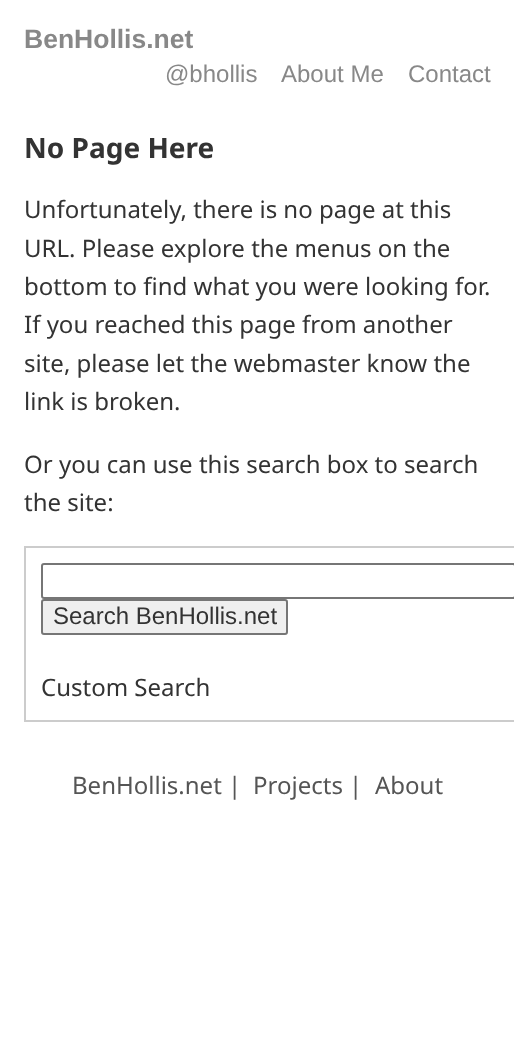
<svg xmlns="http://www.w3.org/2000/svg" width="514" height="1054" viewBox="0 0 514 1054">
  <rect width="100%" height="100%" fill="rgb(255,255,255)"/>
  <text x="24" y="48" font-family="Liberation Sans" font-size="26.5" font-weight="bold" fill="rgb(136,136,136)">BenHollis.net</text>
  <g font-family="Liberation Sans" font-size="24" fill="rgb(136,136,136)">
    <text x="165" y="82">@bhollis</text>
    <text x="281" y="82">About Me</text>
    <text x="408" y="82">Contact</text>
  </g>
  <text x="24" y="158" font-family="Noto Sans" font-size="28" font-weight="bold" fill="rgb(51,51,51)">No Page Here</text>
  <g font-family="Noto Sans" font-size="24" fill="rgb(51,51,51)">
    <text>
      <tspan x="24" y="218">Unfortunately, there is no page at this</tspan>
      <tspan x="24" y="257">URL. Please explore the menus on the</tspan>
      <tspan x="24" y="295">bottom to find what you were looking for.</tspan>
      <tspan x="24" y="333">If you reached this page from another</tspan>
      <tspan x="24" y="372">site, please let the webmaster know the</tspan>
      <tspan x="24" y="410">link is broken.</tspan>
    </text>
    <text>
      <tspan x="24" y="473">Or you can use this search box to search</tspan>
      <tspan x="24" y="511">the site:</tspan>
    </text>
  </g>
  <rect x="25" y="547" width="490" height="174" fill="none" stroke="rgb(204,204,204)" stroke-width="2"/>
  <rect x="42" y="564" width="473" height="34" rx="2" fill="none" stroke="rgb(118,118,118)" stroke-width="2"/>
  <rect x="42" y="600" width="245" height="34" rx="2" fill="rgb(239,239,239)" stroke="rgb(118,118,118)" stroke-width="2"/>
  <text x="53" y="624" font-family="Liberation Sans" font-size="24" fill="rgb(51,51,51)">Search BenHollis.net</text>
  <text x="41" y="696" font-family="Noto Sans" font-size="24" fill="rgb(51,51,51)">Custom Search</text>
  <g font-family="Noto Sans" font-size="24" fill="rgb(85,85,85)">
    <text x="72" y="794">BenHollis.net |</text>
    <text x="253" y="794">Projects |</text>
    <text x="375" y="794">About</text>
  </g>
</svg>
